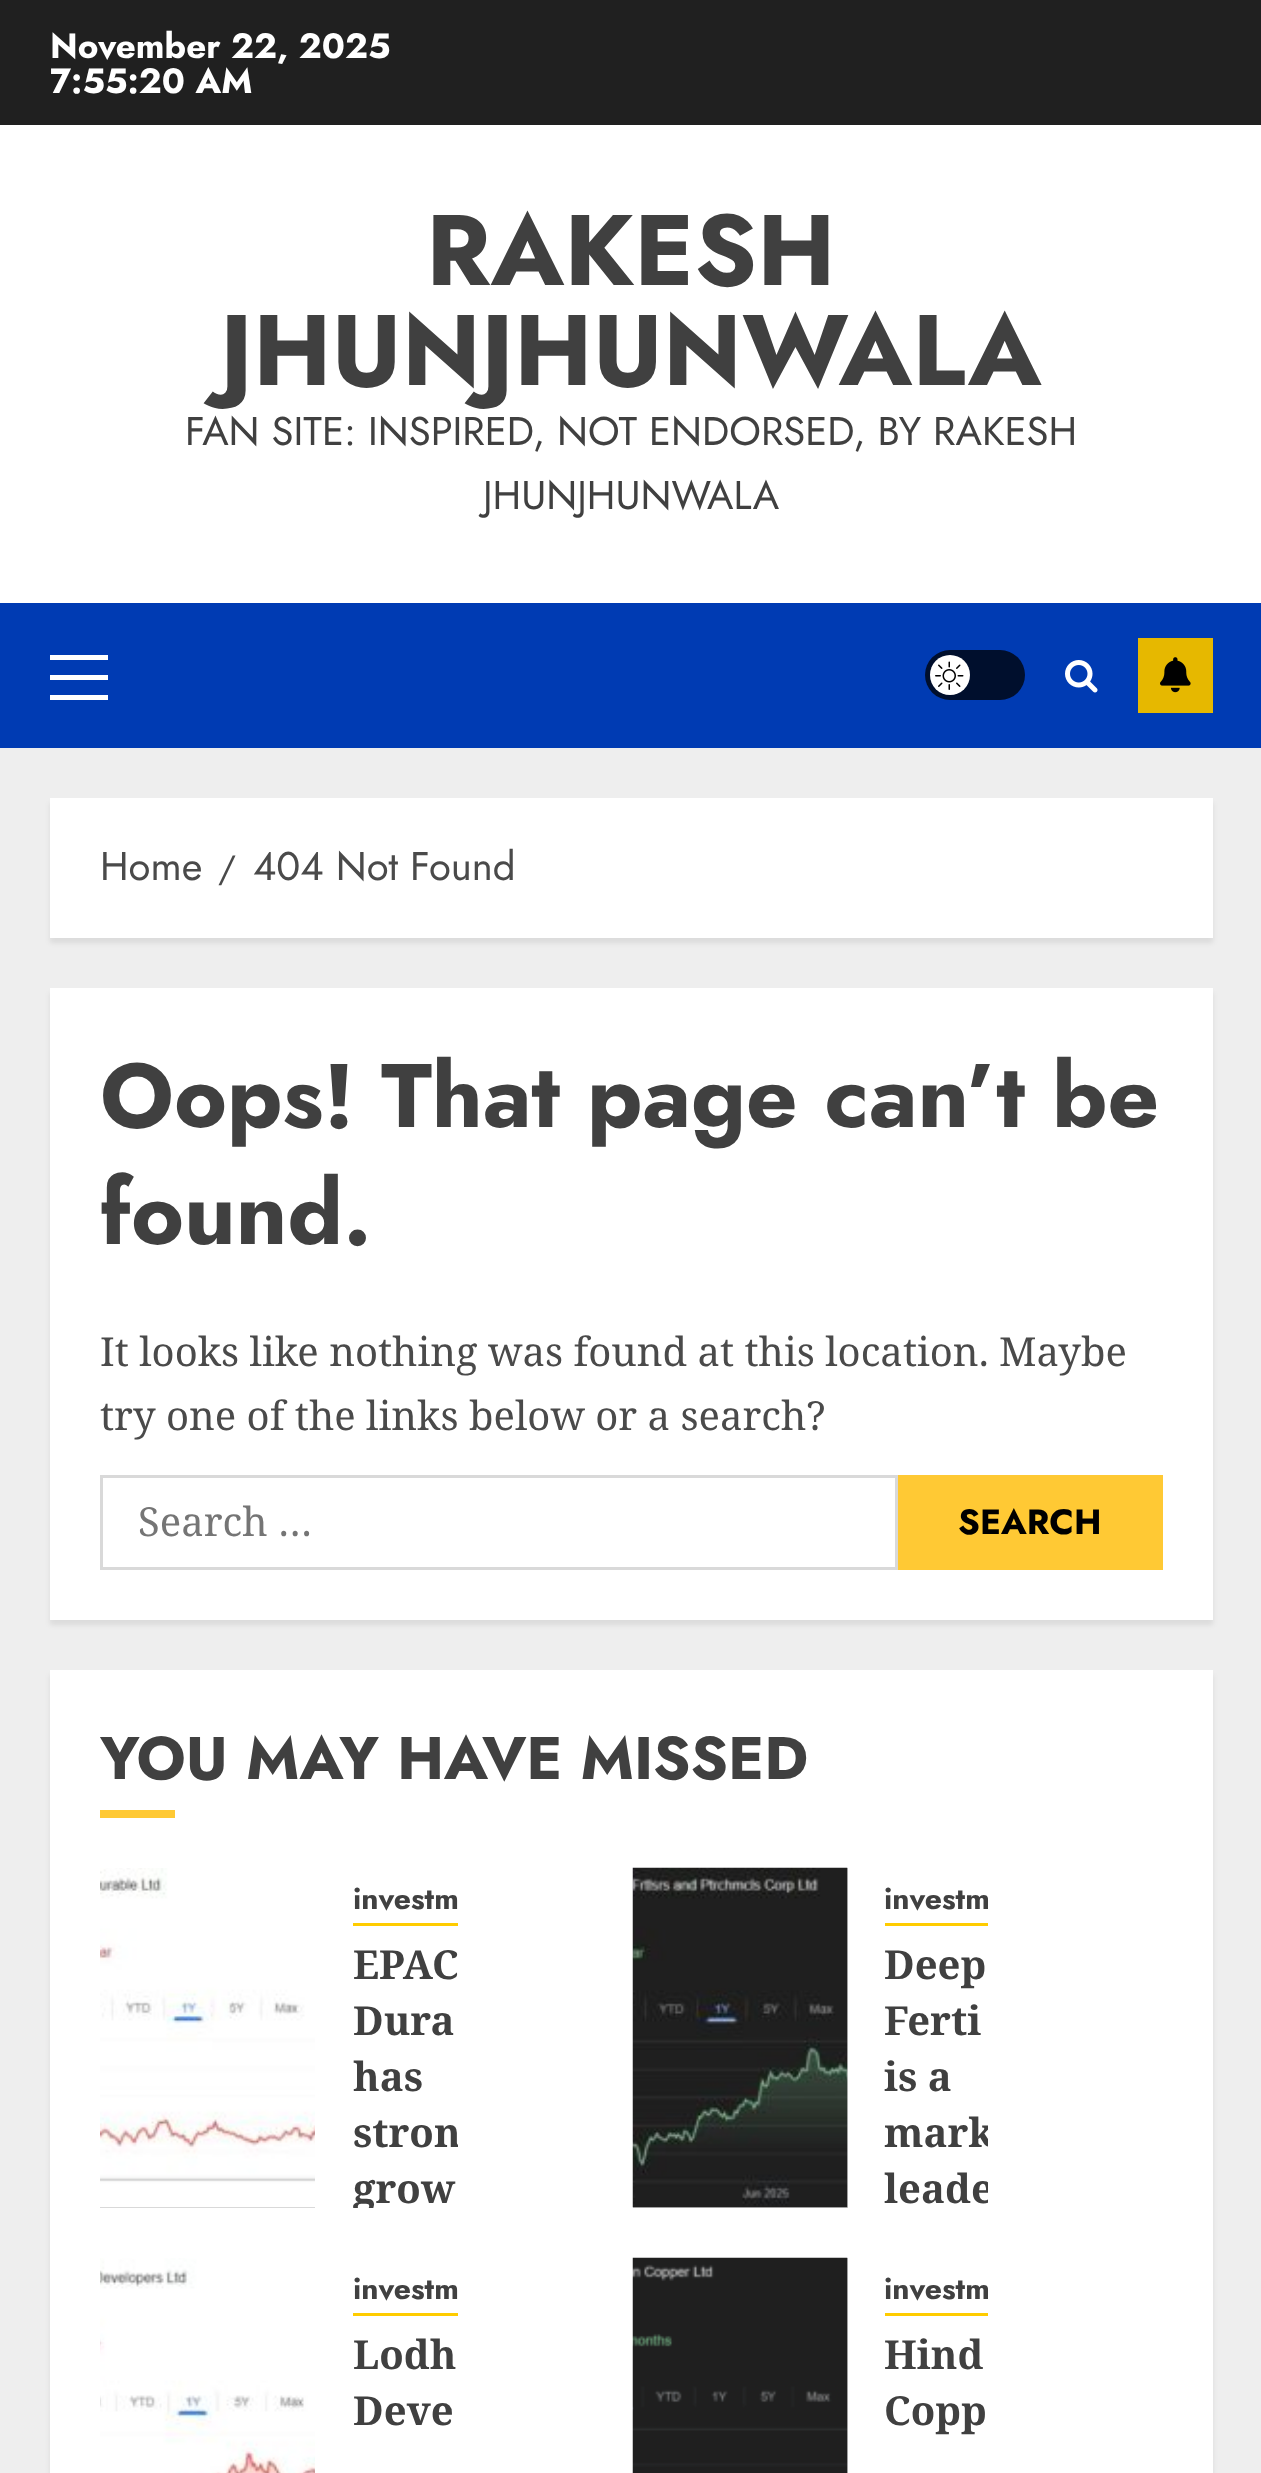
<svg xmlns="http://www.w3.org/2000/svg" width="1261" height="2473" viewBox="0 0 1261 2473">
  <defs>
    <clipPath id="clip1"><rect x="315" y="1868" width="143" height="340"/></clipPath>
    <clipPath id="clip2"><rect x="848" y="1868" width="140" height="340"/></clipPath>
    <clipPath id="clip3"><rect x="848" y="2258" width="140" height="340"/></clipPath>
  </defs>
  <rect width="100%" height="100%" fill="rgb(238,238,238)"/>
  <rect x="0" y="0" width="1261" height="125" fill="rgb(32,32,32)"/>
  <g font-family="Jost" font-size="35" font-weight="bold" fill="rgb(255,255,255)">
    <text>
      <tspan x="50" y="58">November 22, 2025</tspan>
      <tspan x="50" y="93">7:55:20 AM</tspan>
    </text>
  </g>
  <rect x="0" y="125" width="1261" height="478" fill="rgb(255,255,255)"/>
  <g font-family="Jost" font-size="100" font-weight="bold" fill="rgb(64,64,64)">
    <text x="426" y="285">RAKESH</text>
    <text x="220" y="385">JHUNJHUNWALA</text>
  </g>
  <g font-family="Jost" font-size="40" fill="rgb(64,64,64)">
    <text x="185" y="445">FAN SITE: INSPIRED, NOT ENDORSED, BY RAKESH</text>
    <text x="483" y="509">JHUNJHUNWALA</text>
  </g>
  <rect x="0" y="603" width="1261" height="145" fill="rgb(0,59,179)"/>
  <rect x="50" y="675" width="58" height="5" fill="rgb(255,255,255)"/>
  <rect x="50" y="655" width="58" height="5" fill="rgb(255,255,255)"/>
  <rect x="50" y="695" width="58" height="5" fill="rgb(255,255,255)"/>
  <rect x="925" y="650" width="100" height="50" rx="25" fill="rgb(0,15,45)"/>
  <circle cx="950" cy="675" r="20" fill="rgb(255,255,255)"/>
  <image x="935" y="661" width="29" height="29" href="pic1.png"/>
  <image x="1065" y="660" width="33" height="33" href="pic2.png"/>
  <rect x="1138" y="638" width="75" height="75" fill="rgb(230,184,0)"/>
  <image x="1160" y="657" width="31" height="36" href="pic3.png"/>
  <rect x="50" y="803" width="1163" height="140" fill="rgba(0,0,0,0.08)" filter="blur(2.5px)"/>
  <rect x="50" y="798" width="1163" height="140" fill="rgb(255,255,255)"/>
  <text x="100" y="880" font-family="Jost" font-size="40" fill="rgb(74,74,74)">Home</text>
  <text x="218" y="880" font-family="Jost" font-size="35" fill="rgb(74,74,74)">/</text>
  <text x="253" y="880" font-family="Jost" font-size="40" fill="rgb(74,74,74)">404 Not Found</text>
  <rect x="50" y="993" width="1163" height="632" fill="rgba(0,0,0,0.08)" filter="blur(2.5px)"/>
  <rect x="50" y="988" width="1163" height="632" fill="rgb(255,255,255)"/>
  <g font-family="Jost" font-size="90" font-weight="bold" fill="rgb(64,64,64)">
    <text>
      <tspan x="100" y="1127">Oops! That page can’t be</tspan>
      <tspan x="100" y="1244">found.</tspan>
    </text>
  </g>
  <g font-family="Noto Serif" font-size="40" fill="rgb(74,74,74)">
    <text>
      <tspan x="100" y="1366">It looks like nothing was found at this location. Maybe</tspan>
      <tspan x="100" y="1430">try one of the links below or a search?</tspan>
    </text>
  </g>
  <rect x="101.5" y="1476.5" width="795" height="92" fill="none" stroke="rgb(217,217,217)" stroke-width="3"/>
  <text x="138" y="1536" font-family="Noto Serif" font-size="40" fill="rgb(117,117,117)">Search …</text>
  <rect x="898" y="1475" width="265" height="95" fill="rgb(255,201,52)"/>
  <text x="958" y="1534" font-family="Jost" font-size="35" font-weight="bold" fill="rgb(0,0,0)">SEARCH</text>
  <rect x="50" y="1675" width="1163" height="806" fill="rgba(0,0,0,0.08)" filter="blur(2.5px)"/>
  <rect x="50" y="1670" width="1163" height="803" fill="rgb(255,255,255)"/>
  <text x="100" y="1779" font-family="Jost" font-size="60" font-weight="bold" fill="rgb(64,64,64)">YOU MAY HAVE MISSED</text>
  <rect x="100" y="1810" width="75" height="8" fill="rgb(255,201,52)"/>
  <rect x="100" y="2207" width="215" height="1" fill="rgb(204,204,204)"/>
  <image x="100" y="1868" width="215" height="340" href="pic4.png"/>
  <rect x="353" y="1923" width="105" height="3" fill="rgb(255,204,0)"/>
  <text x="353" y="1909" font-family="Jost" font-size="30" font-weight="bold" fill="rgb(64,64,64)">investm</text>
  <g font-family="Noto Serif" font-size="40" font-weight="bold" fill="rgb(64,64,64)">
    <text>
      <tspan x="353" y="1979">EPAC</tspan>
      <tspan x="353" y="2035">Dura</tspan>
      <tspan x="353" y="2091">has</tspan>
    </text>
  </g>
  <g clip-path="url(#clip1)">
    <g font-family="Noto Serif" font-size="40" font-weight="bold" fill="rgb(64,64,64)">
      <text>
        <tspan x="353" y="2147">stron</tspan>
        <tspan x="353" y="2203">grow</tspan>
      </text>
    </g>
  </g>
  <rect x="633" y="1868" width="215" height="340" fill="rgb(204,204,204)"/>
  <image x="632" y="1867" width="216" height="341" href="pic5.png"/>
  <rect x="885" y="1923" width="103" height="3" fill="rgb(255,204,0)"/>
  <g clip-path="url(#clip2)">
    <text x="884" y="1909" font-family="Jost" font-size="30" font-weight="bold" fill="rgb(64,64,64)">investm</text>
  </g>
  <g font-family="Noto Serif" font-size="40" font-weight="bold" fill="rgb(64,64,64)">
    <text>
      <tspan x="884" y="1979">Deep</tspan>
      <tspan x="884" y="2035">Ferti</tspan>
      <tspan x="884" y="2091">is a</tspan>
    </text>
  </g>
  <g clip-path="url(#clip2)">
    <g font-family="Noto Serif" font-size="40" font-weight="bold" fill="rgb(64,64,64)">
      <text>
        <tspan x="884" y="2147">mark</tspan>
        <tspan x="884" y="2203">leade</tspan>
      </text>
    </g>
  </g>
  <image x="100" y="2258" width="215" height="215" href="pic6.png"/>
  <rect x="353" y="2313" width="105" height="3" fill="rgb(255,204,0)"/>
  <text x="353" y="2299" font-family="Jost" font-size="30" font-weight="bold" fill="rgb(64,64,64)">investm</text>
  <g font-family="Noto Serif" font-size="40" font-weight="bold" fill="rgb(64,64,64)">
    <text>
      <tspan x="353" y="2369">Lodh</tspan>
      <tspan x="353" y="2425">Deve</tspan>
    </text>
  </g>
  <rect x="847" y="2258" width="1" height="215" fill="rgb(204,204,204)"/>
  <image x="632" y="2257" width="216" height="216" href="pic7.png"/>
  <rect x="885" y="2313" width="103" height="3" fill="rgb(255,204,0)"/>
  <g clip-path="url(#clip3)">
    <text x="884" y="2299" font-family="Jost" font-size="30" font-weight="bold" fill="rgb(64,64,64)">investm</text>
  </g>
  <g font-family="Noto Serif" font-size="40" font-weight="bold" fill="rgb(64,64,64)">
    <text>
      <tspan x="884" y="2369">Hind</tspan>
      <tspan x="884" y="2425">Copp</tspan>
    </text>
  </g>
</svg>
